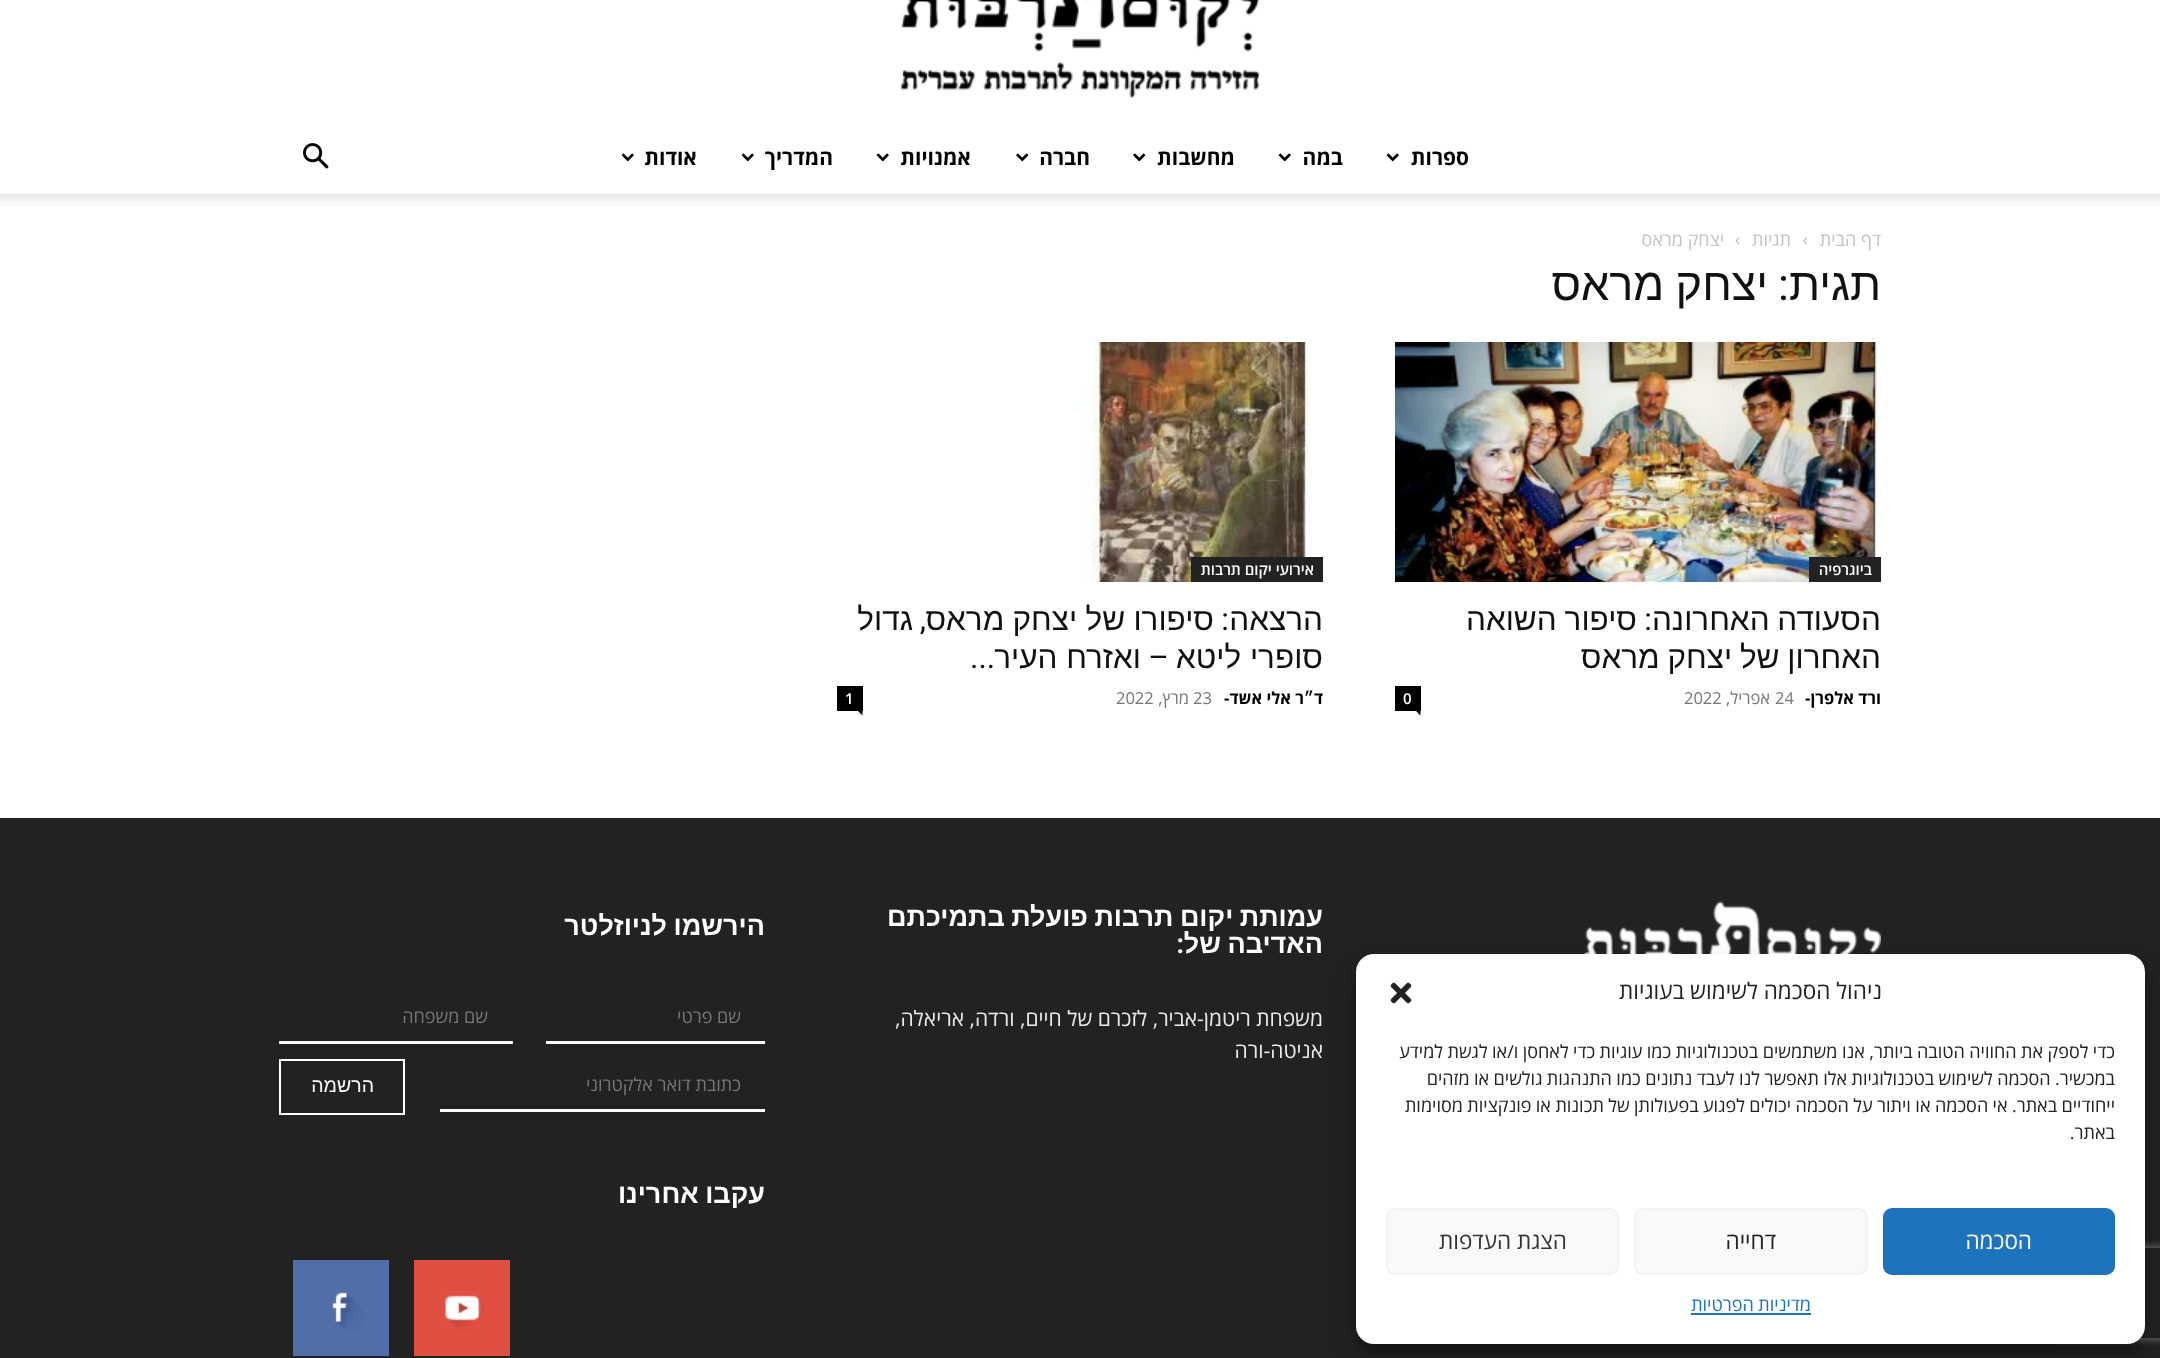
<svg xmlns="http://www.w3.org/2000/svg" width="2160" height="1358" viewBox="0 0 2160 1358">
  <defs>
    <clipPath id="clip1"><rect x="837" y="900" width="486" height="197"/></clipPath>
    <clipPath id="clip2"><path d="M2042 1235H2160V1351H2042ZM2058 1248H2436C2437.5 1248 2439 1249.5 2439 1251V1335C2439 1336.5 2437.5 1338 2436 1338H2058C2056.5 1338 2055 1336.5 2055 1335V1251C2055 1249.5 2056.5 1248 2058 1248Z" clip-rule="evenodd"/></clipPath>
    <clipPath id="clip3"><rect x="1386" y="1038" width="729" height="140"/></clipPath>
  </defs>
  <rect width="100%" height="100%" fill="rgb(255,255,255)"/>
  <image x="900" y="0" width="360" height="98" href="pic1.png"/>
  <text x="1469" y="165" font-family="Open Sans" font-size="21" font-weight="bold" direction="rtl" fill="rgb(0,0,0)">ספרות</text>
  <image x="1386" y="153" width="13" height="9" href="pic2.png"/>
  <text x="1343" y="165" font-family="Open Sans" font-size="21" font-weight="bold" direction="rtl" fill="rgb(0,0,0)">במה</text>
  <image x="1278" y="153" width="13" height="9" href="pic2.png"/>
  <text x="1235" y="165" font-family="Open Sans" font-size="21" font-weight="bold" direction="rtl" fill="rgb(0,0,0)">מחשבות</text>
  <image x="1133" y="153" width="13" height="9" href="pic3.png"/>
  <text x="1090" y="165" font-family="Open Sans" font-size="21" font-weight="bold" direction="rtl" fill="rgb(0,0,0)">חברה</text>
  <image x="1016" y="153" width="13" height="9" href="pic3.png"/>
  <text x="971" y="165" font-family="Open Sans" font-size="21" font-weight="bold" direction="rtl" fill="rgb(0,0,0)">אמנויות</text>
  <image x="876" y="153" width="13" height="9" href="pic2.png"/>
  <text x="833" y="165" font-family="Open Sans" font-size="21" font-weight="bold" direction="rtl" fill="rgb(0,0,0)">המדריך</text>
  <image x="741" y="153" width="13" height="9" href="pic2.png"/>
  <text x="697" y="165" font-family="Open Sans" font-size="21" font-weight="bold" direction="rtl" fill="rgb(0,0,0)">אודות</text>
  <image x="621" y="153" width="13" height="9" href="pic2.png"/>
  <image x="303" y="143" width="26" height="26" href="pic4.png"/>
  <image x="0" y="193" width="2160" height="13" href="pic5.png"/>
  <text x="1881" y="246" font-family="Open Sans" font-size="18" direction="rtl" fill="rgb(195,195,195)">דף הבית</text>
  <image x="1803" y="237" width="4" height="8" href="pic6.png"/>
  <text x="1791" y="246" font-family="Open Sans" font-size="18" direction="rtl" fill="rgb(195,195,195)">תגיות</text>
  <image x="1735" y="237" width="5" height="8" href="pic7.png"/>
  <text x="1724" y="246" font-family="Open Sans" font-size="18" direction="rtl" fill="rgb(195,195,195)">יצחק מראס</text>
  <text x="1881" y="300" font-family="Liberation Sans" font-size="45" direction="rtl" fill="rgb(17,17,17)">תגית</text>
  <text x="1789" y="300" font-family="Roboto" font-size="45" direction="rtl" fill="rgb(17,17,17)">:</text>
  <text x="1768" y="300" word-spacing="-1" font-family="Liberation Sans" font-size="45" direction="rtl" fill="rgb(17,17,17)">יצחק מראס</text>
  <image x="1395" y="342" width="484" height="240" href="pic8.png"/>
  <rect x="1809" y="557" width="72" height="25" fill="rgb(34,34,34)"/>
  <text x="1872" y="575" font-family="Open Sans" font-size="15" font-weight="600" direction="rtl" fill="rgb(255,255,255)">ביוגרפיה</text>
  <text x="1881" y="630" word-spacing="-1" font-family="Liberation Sans" font-size="31.5" direction="rtl" fill="rgb(17,17,17)">הסעודה האחרונה</text>
  <text x="1652" y="630" font-family="Roboto" font-size="31.5" direction="rtl" fill="rgb(17,17,17)">:</text>
  <g font-family="Liberation Sans" font-size="31.5" direction="rtl" fill="rgb(17,17,17)">
    <text x="1637" y="630" word-spacing="-1">סיפור השואה</text>
    <text x="1881" y="668" word-spacing="-1">האחרון של יצחק מראס</text>
  </g>
  <text x="1881" y="704" font-family="Open Sans" font-size="16.5" font-weight="bold" direction="rtl" fill="rgb(0,0,0)">ורד אלפרן</text>
  <text x="1805" y="704" font-family="Open Sans" font-size="16.5" font-weight="bold" fill="rgb(0,0,0)">-</text>
  <text x="1775" y="704" font-family="Open Sans" font-size="16.5" fill="rgb(118,118,118)">24</text>
  <text x="1770" y="704" font-family="Open Sans" font-size="16.5" direction="rtl" fill="rgb(118,118,118)">אפריל,</text>
  <text x="1684" y="704" font-family="Open Sans" font-size="16.5" fill="rgb(118,118,118)">2022</text>
  <rect x="1395" y="686" width="26" height="25" fill="rgb(0,0,0)"/>
  <text x="1403" y="704" font-family="Open Sans" font-size="15" font-weight="600" fill="rgb(255,255,255)">0</text>
  <path d="M1416 711H1420.5V715.5Z" fill="rgb(0,0,0)"/>
  <image x="1080" y="342" width="231" height="240" href="pic9.png"/>
  <rect x="1191" y="557" width="132" height="25" fill="rgb(34,34,34)"/>
  <text x="1314" y="575" font-family="Open Sans" font-size="15" font-weight="600" direction="rtl" fill="rgb(255,255,255)">אירועי יקום תרבות</text>
  <text x="1323" y="630" font-family="Liberation Sans" font-size="31.5" direction="rtl" fill="rgb(17,17,17)">הרצאה</text>
  <text x="1229" y="630" font-family="Roboto" font-size="31.5" direction="rtl" fill="rgb(17,17,17)">:</text>
  <text x="1214" y="630" word-spacing="-0.5" font-family="Liberation Sans" font-size="31.5" direction="rtl" fill="rgb(17,17,17)">סיפורו של יצחק מראס</text>
  <text x="926" y="630" font-family="Roboto" font-size="31.5" direction="rtl" fill="rgb(17,17,17)">,</text>
  <g font-family="Liberation Sans" font-size="31.5" direction="rtl" fill="rgb(17,17,17)">
    <text x="913" y="630">גדול</text>
    <text x="1323" y="668">סופרי ליטא</text>
  </g>
  <text x="1169" y="668" font-family="Roboto" font-size="31.5" direction="rtl" fill="rgb(17,17,17)">–</text>
  <text x="1141" y="668" font-family="Liberation Sans" font-size="31.5" direction="rtl" fill="rgb(17,17,17)">ואזרח העיר</text>
  <text x="995" y="668" font-family="Roboto" font-size="31.5" direction="rtl" fill="rgb(17,17,17)">...</text>
  <text x="1323" y="704" font-family="Open Sans" font-size="16.5" font-weight="bold" direction="rtl" fill="rgb(0,0,0)">ד</text>
  <text x="1314" y="704" font-family="Liberation Sans" font-size="16.5" font-weight="bold" direction="rtl" fill="rgb(0,0,0)">״</text>
  <text x="1304" y="704" font-family="Open Sans" font-size="16.5" font-weight="bold" direction="rtl" fill="rgb(0,0,0)">ר אלי אשד</text>
  <text x="1224" y="704" font-family="Open Sans" font-size="16.5" font-weight="bold" fill="rgb(0,0,0)">-</text>
  <text x="1193" y="704" font-family="Open Sans" font-size="16.5" fill="rgb(118,118,118)">23</text>
  <text x="1189" y="704" font-family="Open Sans" font-size="16.5" direction="rtl" fill="rgb(118,118,118)">מרץ,</text>
  <text x="1116" y="704" font-family="Open Sans" font-size="16.5" fill="rgb(118,118,118)">2022</text>
  <rect x="837" y="686" width="26" height="25" fill="rgb(0,0,0)"/>
  <text x="845" y="704" font-family="Open Sans" font-size="15" font-weight="600" fill="rgb(255,255,255)">1</text>
  <path d="M858 711H862.5V715.5Z" fill="rgb(0,0,0)"/>
  <rect x="0" y="818" width="2160" height="540" fill="rgb(34,34,34)"/>
  <image x="1583" y="901" width="298" height="53" href="pic10.png"/>
  <g clip-path="url(#clip1)">
    <text x="1323" y="926" word-spacing="-1" font-family="Liberation Sans" font-size="27" font-weight="bold" direction="rtl" fill="rgb(255,255,255)">עמותת יקום תרבות פועלת בתמיכתם</text>
  </g>
  <text x="1323" y="953" word-spacing="-1" font-family="Liberation Sans" font-size="27" font-weight="bold" direction="rtl" fill="rgb(255,255,255)">האדיבה של</text>
  <text x="1184" y="953" font-family="Roboto" font-size="27" font-weight="bold" direction="rtl" fill="rgb(255,255,255)">:</text>
  <g font-family="Open Sans" font-size="21" direction="rtl" fill="rgb(234,234,234)">
    <text>
      <tspan x="1323" y="1026">משפחת ריטמן-אביר, לזכרם של חיים, ורדה, אריאלה,</tspan>
      <tspan x="1323" y="1058">אניטה-ורה</tspan>
    </text>
  </g>
  <text x="765" y="935" word-spacing="-1" font-family="Liberation Sans" font-size="27" font-weight="bold" direction="rtl" fill="rgb(255,255,255)">הירשמו לניוזלטר</text>
  <rect x="546" y="1041" width="219" height="3" fill="rgb(255,255,255)"/>
  <text x="741" y="1023" font-family="Open Sans" font-size="18" direction="rtl" fill="rgb(118,118,118)">שם פרטי</text>
  <rect x="279" y="1041" width="234" height="3" fill="rgb(255,255,255)"/>
  <text x="488" y="1023" font-family="Open Sans" font-size="18" direction="rtl" fill="rgb(118,118,118)">שם משפחה</text>
  <rect x="440" y="1109" width="325" height="3" fill="rgb(255,255,255)"/>
  <text x="741" y="1091" font-family="Open Sans" font-size="18" direction="rtl" fill="rgb(118,118,118)">כתובת דואר אלקטרוני</text>
  <rect x="280" y="1060" width="124" height="54" fill="none" stroke="rgb(255,255,255)" stroke-width="2"/>
  <text x="374" y="1092" font-family="Liberation Sans" font-size="19.5" direction="rtl" fill="rgb(255,255,255)">הרשמה</text>
  <text x="765" y="1203" word-spacing="-1" font-family="Liberation Sans" font-size="27" font-weight="bold" direction="rtl" fill="rgb(255,255,255)">עקבו אחרינו</text>
  <rect x="414" y="1260" width="96" height="96" fill="rgb(225,78,66)"/>
  <image x="445" y="1295" width="41" height="36" href="pic11.png"/>
  <rect x="293" y="1260" width="96" height="96" fill="rgb(81,110,171)"/>
  <image x="332" y="1292" width="31" height="38" href="pic12.png"/>
  <rect x="1356" y="963" width="789" height="390" rx="18" fill="rgba(0,0,0,0.23)" filter="blur(4.5px)"/>
  <rect x="1356" y="969" width="789" height="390" rx="18" fill="rgba(0,0,0,0.19)" filter="blur(15px)"/>
  <g clip-path="url(#clip2)">
    <rect x="2055" y="1248" width="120" height="90" rx="3" fill="rgb(128,128,128)" filter="blur(4px)"/>
  </g>
  <rect x="1356" y="954" width="789" height="390" rx="18" fill="rgb(255,255,255)"/>
  <text x="1882" y="999" font-family="Open Sans" font-size="22.5" direction="rtl" fill="rgb(34,34,34)">ניהול הסכמה לשימוש בעוגיות</text>
  <image x="1390" y="982" width="22" height="22" href="pic13.png"/>
  <g clip-path="url(#clip3)">
    <g font-family="Open Sans" font-size="18" direction="rtl" fill="rgb(34,34,34)">
      <text>
        <tspan x="2115" y="1058" word-spacing="-0.25">כדי לספק את החוויה הטובה ביותר, אנו משתמשים בטכנולוגיות כמו עוגיות כדי לאחסן ו/או לגשת למידע</tspan>
        <tspan x="2115" y="1085" word-spacing="-0.25">במכשיר. הסכמה לשימוש בטכנולוגיות אלו תאפשר לנו לעבד נתונים כמו התנהגות גולשים או מזהים</tspan>
        <tspan x="2115" y="1112" word-spacing="-0.25">ייחודיים באתר. אי הסכמה או ויתור על הסכמה יכולים לפגוע בפעולותן של תכונות או פונקציות מסוימות</tspan>
      </text>
    </g>
  </g>
  <text x="2115" y="1139" font-family="Open Sans" font-size="18" direction="rtl" fill="rgb(34,34,34)">באתר.</text>
  <rect x="1884" y="1209" width="230" height="65" rx="8" fill="rgb(30,115,190)" stroke="rgb(30,115,190)" stroke-width="2"/>
  <text x="2032" y="1249" font-family="Open Sans" font-size="22.5" direction="rtl" fill="rgb(255,255,255)">הסכמה</text>
  <rect x="1635" y="1209" width="232" height="65" rx="8" fill="rgb(249,249,249)" stroke="rgb(242,242,242)" stroke-width="2"/>
  <text x="1776" y="1249" font-family="Open Sans" font-size="22.5" direction="rtl" fill="rgb(34,34,34)">דחייה</text>
  <rect x="1387" y="1209" width="231" height="65" rx="8" fill="rgb(249,249,249)" stroke="rgb(242,242,242)" stroke-width="2"/>
  <text x="1567" y="1249" font-family="Open Sans" font-size="22.5" direction="rtl" fill="rgb(51,51,51)">הצגת העדפות</text>
  <text x="1811" y="1311" font-family="Open Sans" font-size="18" direction="rtl" fill="rgb(30,115,190)">מדיניות הפרטיות</text>
  <rect x="1691" y="1313" width="120" height="2" fill="rgb(30,115,190)"/>
</svg>
